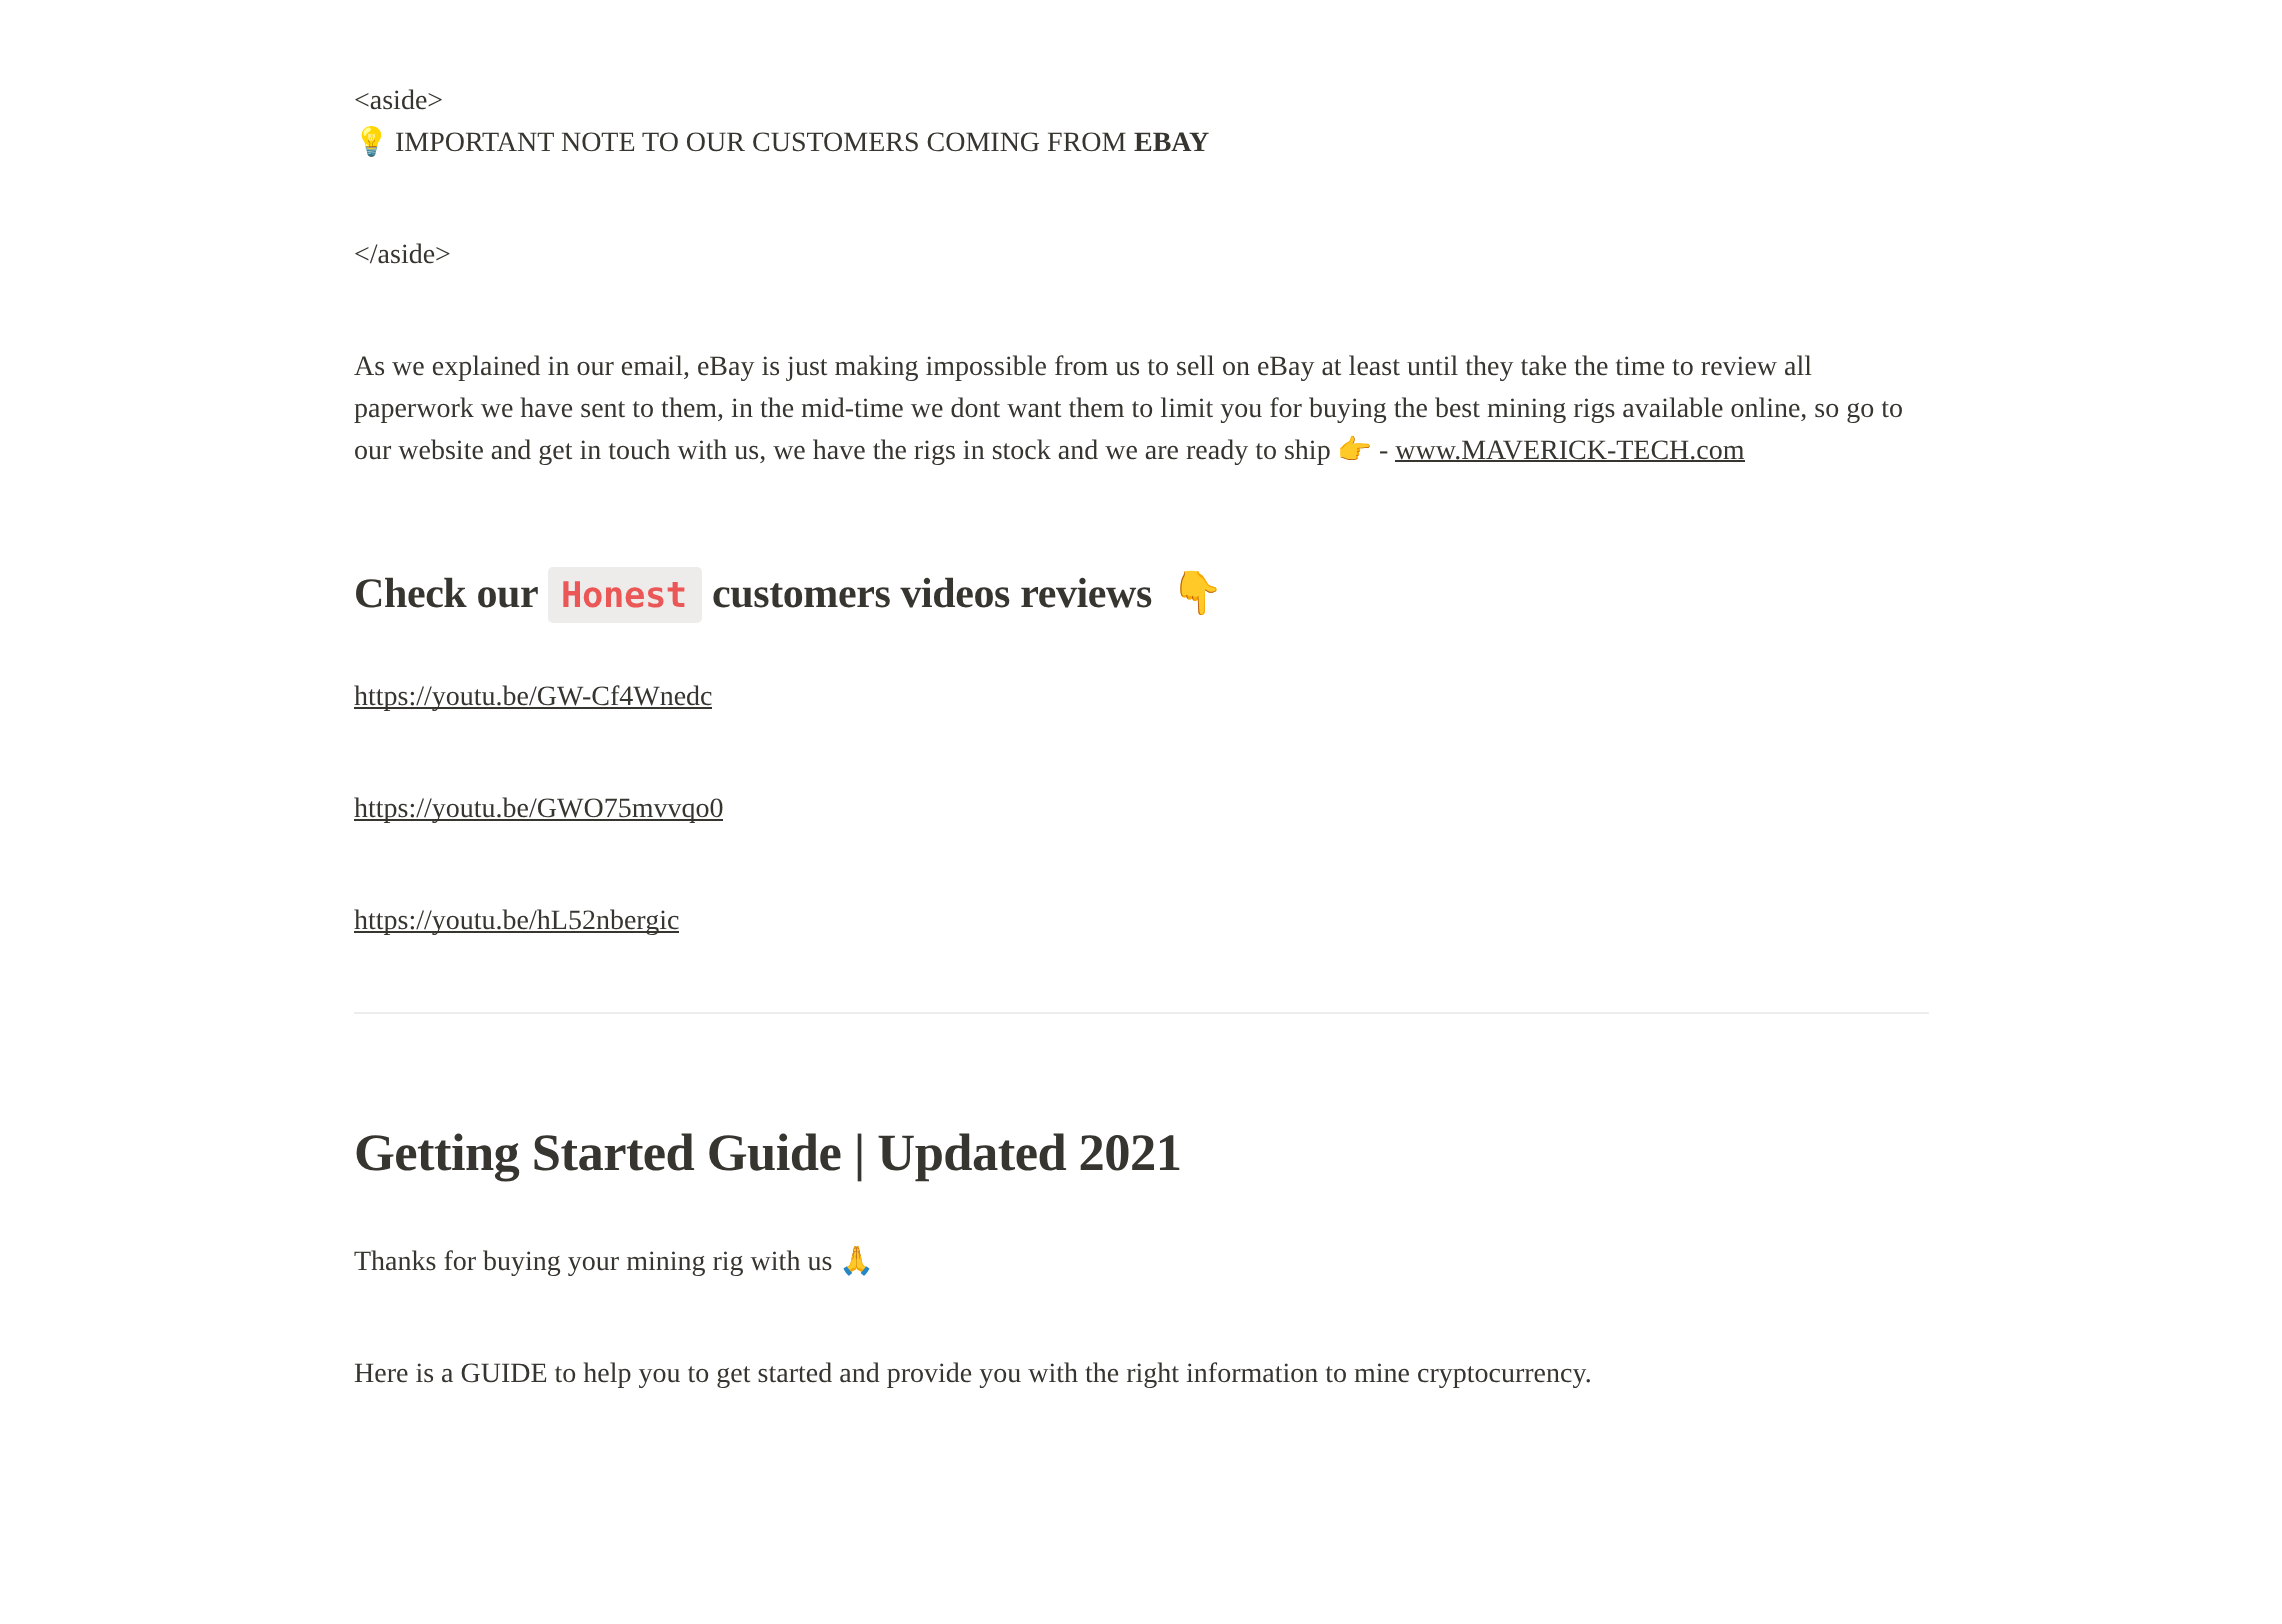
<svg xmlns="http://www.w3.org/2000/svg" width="2282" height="1624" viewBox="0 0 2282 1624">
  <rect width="100%" height="100%" fill="rgb(255,255,255)"/>
  <text x="354" y="109" font-family="Liberation Serif" font-size="28" fill="rgb(55,53,47)">&lt;aside&gt;</text>
  <text x="354" y="151" font-family="Noto Color Emoji" font-size="28" fill="rgb(55,53,47)">💡</text>
  <text x="395" y="151" font-family="Liberation Serif" font-size="28" fill="rgb(55,53,47)">IMPORTANT NOTE TO OUR CUSTOMERS COMING FROM</text>
  <text x="1134" y="151" font-family="Liberation Serif" font-size="28" font-weight="bold" fill="rgb(55,53,47)">EBAY</text>
  <g font-family="Liberation Serif" font-size="28" fill="rgb(55,53,47)">
    <text x="354" y="263">&lt;/aside&gt;</text>
    <text>
      <tspan x="354" y="375">As we explained in our email, eBay is just making impossible from us to sell on eBay at least until they take the time to review all</tspan>
      <tspan x="354" y="417">paperwork we have sent to them, in the mid-time we dont want them to limit you for buying the best mining rigs available online, so go to</tspan>
      <tspan x="354" y="459">our website and get in touch with us, we have the rigs in stock and we are ready to ship</tspan>
    </text>
  </g>
  <text x="1337" y="459" font-family="Noto Color Emoji" font-size="28" fill="rgb(55,53,47)">👉</text>
  <text x="1379" y="459" font-family="Liberation Serif" font-size="28" fill="rgb(55,53,47)">- www.MAVERICK-TECH.com</text>
  <rect x="1395" y="460" width="350" height="2" fill="rgb(55,53,47)"/>
  <text x="354" y="607" font-family="Liberation Serif" font-size="42" font-weight="bold" letter-spacing="-0.4" fill="rgb(55,53,47)">Check our</text>
  <rect x="548" y="567" width="154" height="56" rx="5" fill="rgb(237,236,235)"/>
  <text x="561" y="607" font-family="DejaVu Sans Mono" font-size="35.5" font-weight="bold" letter-spacing="-0.4" fill="rgb(235,87,87)">Honest</text>
  <text x="712" y="607" font-family="Liberation Serif" font-size="42" font-weight="bold" letter-spacing="-0.4" fill="rgb(55,53,47)">customers videos reviews</text>
  <text x="1171" y="607" font-family="Noto Color Emoji" font-size="42" font-weight="bold" letter-spacing="-0.4" fill="rgb(55,53,47)">👇</text>
  <rect x="354" y="707" width="358" height="2" fill="rgb(55,53,47)"/>
  <text x="354" y="705" font-family="Liberation Serif" font-size="28" fill="rgb(55,53,47)">https://youtu.be/GW-Cf4Wnedc</text>
  <rect x="354" y="819" width="369" height="2" fill="rgb(55,53,47)"/>
  <text x="354" y="817" font-family="Liberation Serif" font-size="28" fill="rgb(55,53,47)">https://youtu.be/GWO75mvvqo0</text>
  <rect x="354" y="931" width="325" height="2" fill="rgb(55,53,47)"/>
  <text x="354" y="929" font-family="Liberation Serif" font-size="28" fill="rgb(55,53,47)">https://youtu.be/hL52nbergic</text>
  <rect x="354" y="1012" width="1575" height="2" fill="rgb(237,237,236)"/>
  <text x="354" y="1170" font-family="Liberation Serif" font-size="52.5" font-weight="bold" letter-spacing="-0.55" fill="rgb(55,53,47)">Getting Started Guide | Updated 2021</text>
  <text x="354" y="1270" font-family="Liberation Serif" font-size="28" fill="rgb(55,53,47)">Thanks for buying your mining rig with us</text>
  <text x="839" y="1270" font-family="Noto Color Emoji" font-size="28" fill="rgb(55,53,47)">🙏</text>
  <text x="354" y="1382" font-family="Liberation Serif" font-size="28" fill="rgb(55,53,47)">Here is a GUIDE to help you to get started and provide you with the right information to mine cryptocurrency.</text>
</svg>
